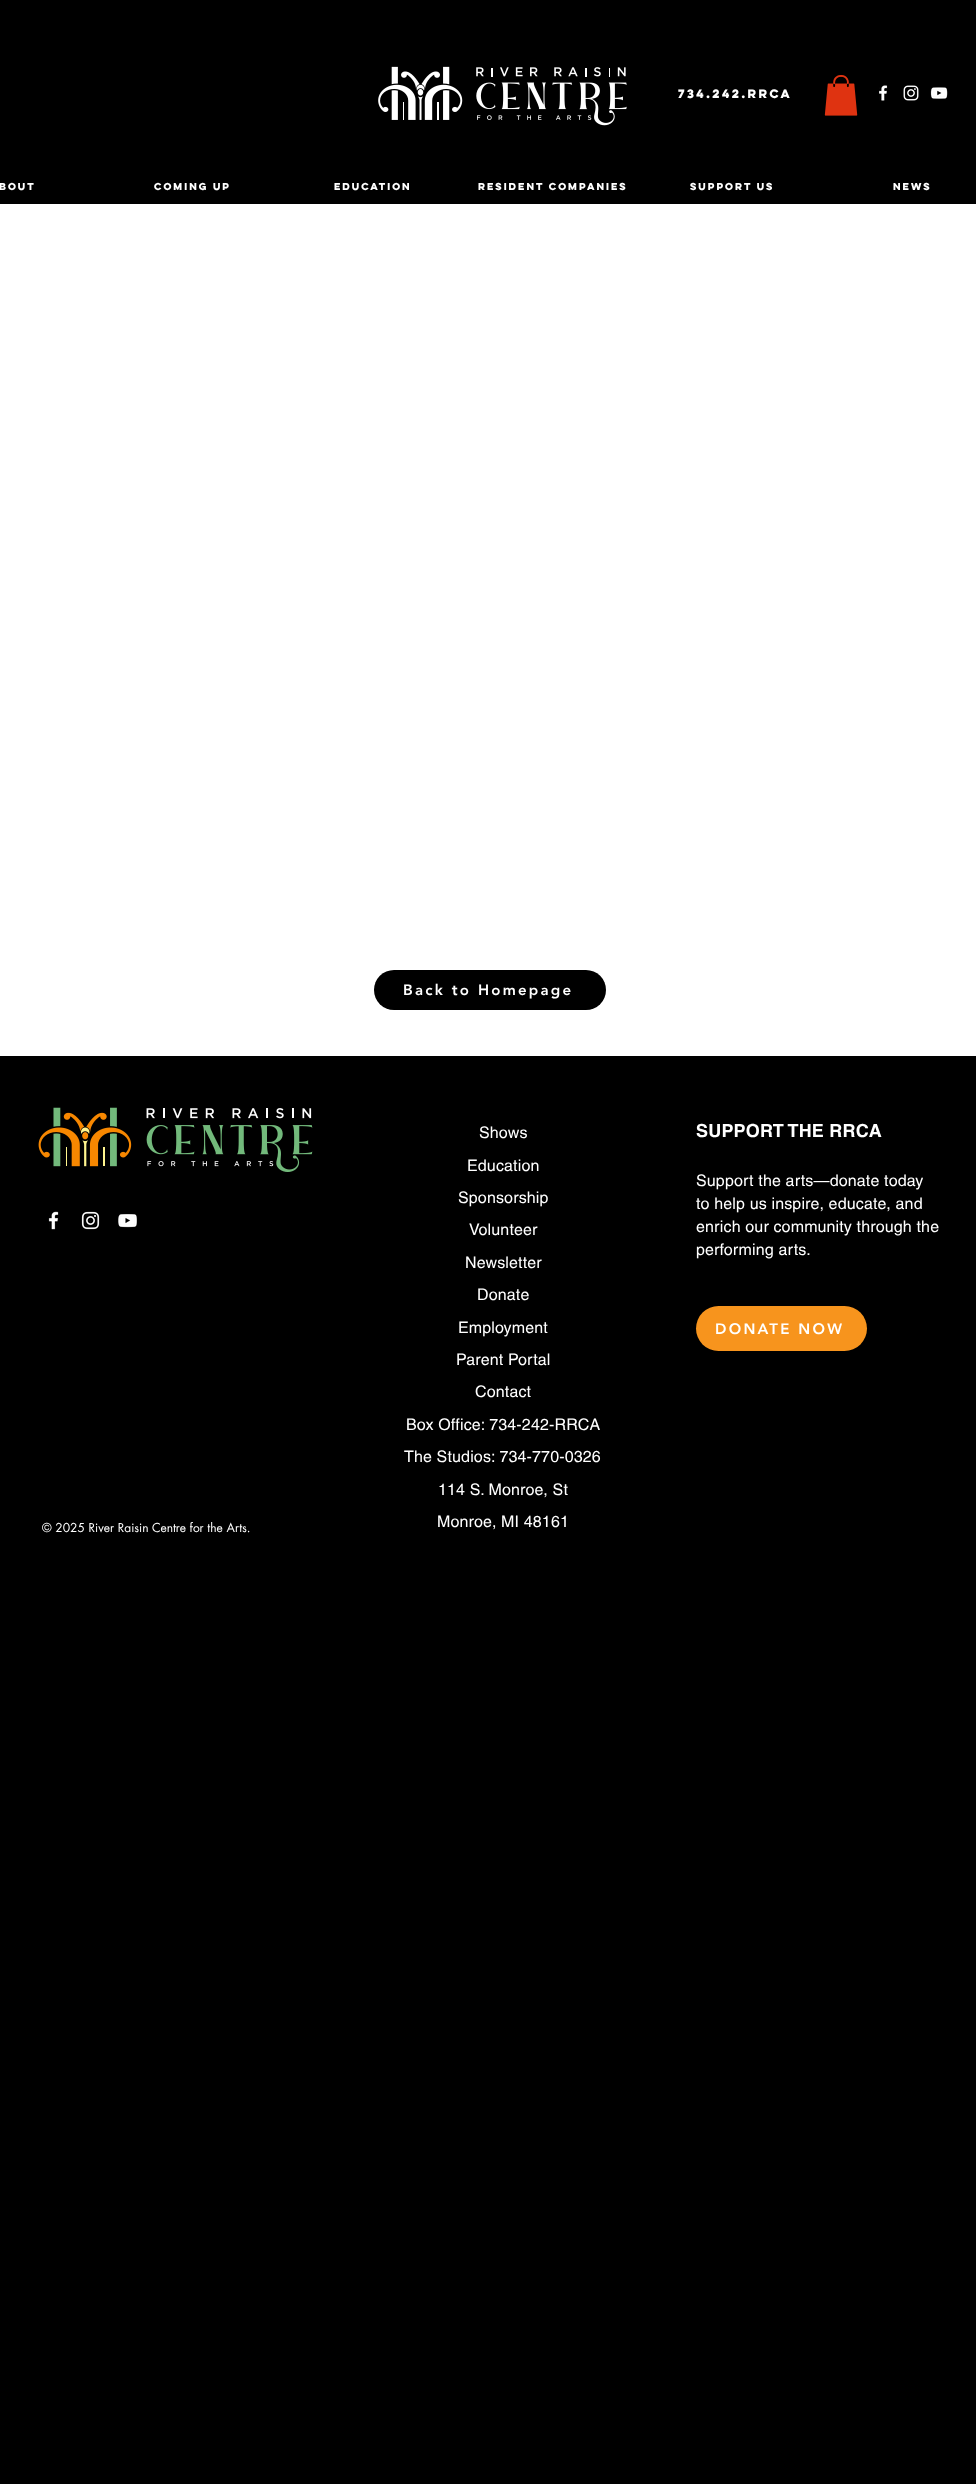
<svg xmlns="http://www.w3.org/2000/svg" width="976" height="2484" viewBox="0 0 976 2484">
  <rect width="100%" height="100%" fill="rgb(0,0,0)"/>
  <image x="378" y="66" width="249" height="60" href="pic1.png"/>
  <text x="678" y="98" font-family="'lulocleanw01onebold'" font-size="11" font-weight="bold" fill="rgb(255,255,255)">734.242.RRCA</text>
  <image x="824" y="75" width="34" height="41" href="pic2.png"/>
  <image x="879" y="85" width="9" height="16" href="pic3.png"/>
  <image x="903" y="85" width="16" height="16" href="pic4.png"/>
  <image x="930" y="87" width="18" height="12" href="pic5.png"/>
  <g font-family="'lulocleanw01onebold'" font-size="9" font-weight="bold" fill="rgb(255,255,255)">
    <text x="-1" y="190">BOUT</text>
    <text x="154" y="190">COMING UP</text>
    <text x="334" y="190">EDUCATION</text>
    <text x="478" y="190">RESIDENT COMPANIES</text>
    <text x="690" y="190">SUPPORT US</text>
    <text x="893" y="190">News</text>
  </g>
  <rect x="0" y="204" width="976" height="852" fill="rgb(255,255,255)"/>
  <rect x="374" y="970" width="232" height="40" rx="20" fill="rgb(0,0,0)"/>
  <text x="403" y="995" font-family="'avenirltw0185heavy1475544'" font-size="15" font-weight="900" letter-spacing="2.25" fill="rgb(255,255,255)">Back to Homepage</text>
  <image x="38" y="1107" width="275" height="65" href="pic6.png"/>
  <g font-family="helvetica" font-size="16" letter-spacing="0.15" fill="rgb(255,255,255)">
    <text x="479" y="1138">Shows</text>
    <text x="467" y="1171">Education</text>
    <text x="458" y="1203">Sponsorship</text>
    <text x="469" y="1235">Volunteer</text>
    <text x="465" y="1268">Newsletter</text>
    <text x="477" y="1300">Donate</text>
    <text x="458" y="1333">Employment</text>
    <text x="456" y="1365">Parent Portal</text>
    <text x="475" y="1397">Contact</text>
    <text x="406" y="1430">Box Office: 734-242-RRCA</text>
    <text x="404" y="1462">The Studios: 734-770-0326</text>
    <text x="438" y="1495">114 S. Monroe, St</text>
    <text x="437" y="1527">Monroe, MI 48161</text>
  </g>
  <text x="696" y="1137" font-family="helvetica" font-size="18" font-weight="bold" letter-spacing="0.2" fill="rgb(255,255,255)">SUPPORT THE RRCA</text>
  <image x="48" y="1211" width="11" height="19" href="pic7.png"/>
  <image x="81" y="1211" width="19" height="19" href="pic8.png"/>
  <image x="118" y="1214" width="19" height="14" href="pic9.png"/>
  <g font-family="helvetica" font-size="16" letter-spacing="0.15" fill="rgb(255,255,255)">
    <text>
      <tspan x="696" y="1186">Support the arts—donate today</tspan>
      <tspan x="696" y="1209">to help us inspire, educate, and</tspan>
      <tspan x="696" y="1232">enrich our community through the</tspan>
      <tspan x="696" y="1255">performing arts.</tspan>
    </text>
  </g>
  <rect x="696" y="1306" width="171" height="45" rx="22.5" fill="rgb(247,148,29)"/>
  <text x="715" y="1334" font-family="'avenirltw0185heavy1475544'" font-size="15" font-weight="900" letter-spacing="2.25" fill="rgb(255,255,255)">DONATE NOW</text>
  <text x="42" y="1532" font-family="futura" font-size="12" fill="rgb(255,255,255)">© 2025 River Raisin Centre for the Arts.</text>
</svg>
